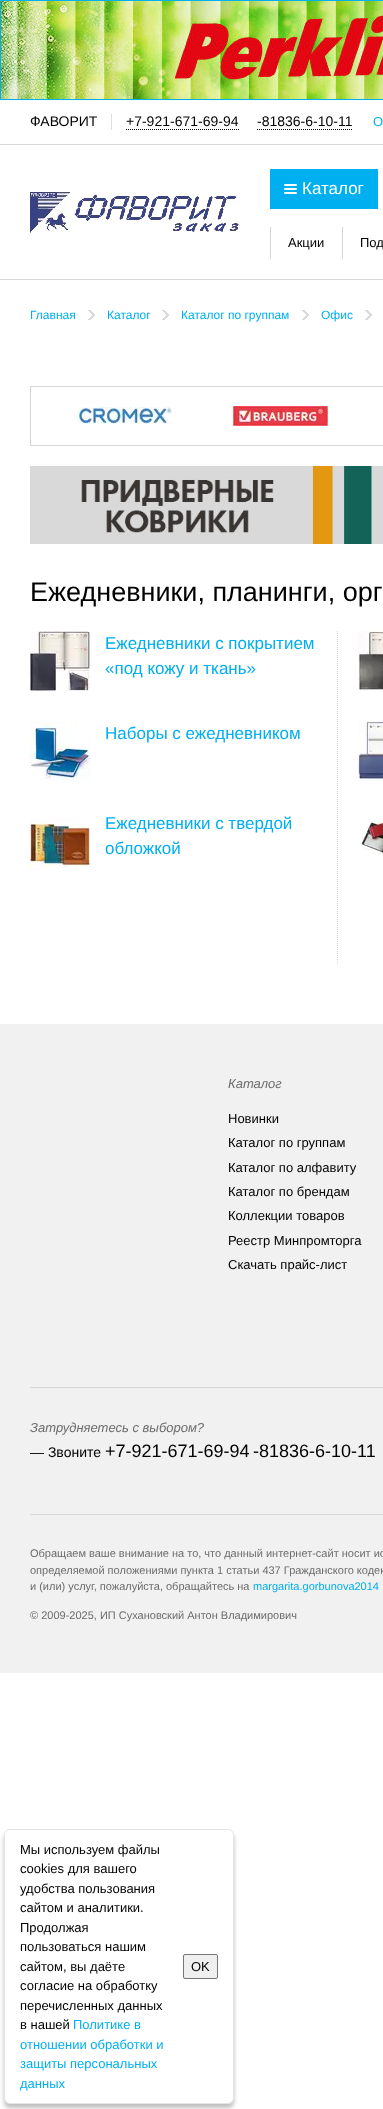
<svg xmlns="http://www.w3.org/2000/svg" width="383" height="2109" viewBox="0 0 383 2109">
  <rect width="100%" height="100%" fill="rgb(255,255,255)"/>
  <image x="1" y="1" width="382" height="98" href="pic1.png"/>
  <rect x="0.5" y="0.5" width="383" height="99" fill="none" stroke="rgb(0,175,240)"/>
  <rect x="0" y="144" width="383" height="1" fill="rgb(214,214,214)"/>
  <text x="30" y="126" font-family="Liberation Sans" font-size="14" fill="rgb(0,0,0)">ФАВОРИТ</text>
  <rect x="111" y="114" width="1" height="16" fill="rgb(222,222,222)"/>
  <text x="126" y="126" font-family="Liberation Sans" font-size="14" fill="rgb(0,0,0)">+7-921-671-69-94</text>
  <path d="M126 129.5H239" fill="none" stroke="rgb(0,0,0)" stroke-dasharray="1 1"/>
  <text x="257" y="126" font-family="Liberation Sans" font-size="14" fill="rgb(0,0,0)">-81836-6-10-11</text>
  <path d="M257 129.5H352" fill="none" stroke="rgb(0,0,0)" stroke-dasharray="1 1"/>
  <text x="373" y="126" font-family="Liberation Sans" font-size="13" fill="rgb(0,175,240)">О</text>
  <rect x="0" y="279" width="383" height="1" fill="rgb(214,214,214)"/>
  <image x="30" y="192" width="209" height="41" href="pic2.png"/>
  <rect x="270" y="169" width="108" height="40" fill="rgb(0,175,240)"/>
  <rect x="284" y="188" width="13" height="2" rx="1" fill="rgb(255,255,255)"/>
  <rect x="284" y="184" width="13" height="2" rx="1" fill="rgb(255,255,255)"/>
  <rect x="284" y="192" width="13" height="2" rx="1" fill="rgb(255,255,255)"/>
  <text x="302" y="194" font-family="Liberation Sans" font-size="17" fill="rgb(255,255,255)">Каталог</text>
  <rect x="342" y="227" width="1" height="32" fill="rgb(214,214,214)"/>
  <rect x="270" y="227" width="1" height="32" fill="rgb(214,214,214)"/>
  <g font-family="Liberation Sans" font-size="13" fill="rgb(0,0,0)">
    <text x="288" y="247">Акции</text>
    <text x="360" y="247">Под</text>
  </g>
  <text x="30" y="319" font-family="Liberation Sans" font-size="12" fill="rgb(0,175,240)">Главная</text>
  <image x="88" y="310" width="7" height="10" href="pic3.png"/>
  <text x="107" y="319" font-family="Liberation Sans" font-size="12" fill="rgb(0,175,240)">Каталог</text>
  <image x="162" y="310" width="7" height="10" href="pic3.png"/>
  <text x="181" y="319" font-family="Liberation Sans" font-size="12" fill="rgb(0,175,240)">Каталог по группам</text>
  <image x="302" y="310" width="7" height="10" href="pic3.png"/>
  <text x="321" y="319" font-family="Liberation Sans" font-size="12" fill="rgb(0,175,240)">Офис</text>
  <image x="365" y="310" width="7" height="10" href="pic3.png"/>
  <rect x="30.5" y="386.5" width="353" height="59" fill="none" stroke="rgb(214,214,214)"/>
  <image x="77" y="407" width="95" height="17" href="pic4.png"/>
  <image x="233" y="406" width="95" height="20" href="pic5.png"/>
  <image x="30" y="466" width="353" height="78" href="pic6.png"/>
  <text x="30" y="601" font-family="Liberation Sans" font-size="27" fill="rgb(0,0,0)">Ежедневники, планинги, орг</text>
  <image x="30" y="631" width="60" height="60" href="pic7.png"/>
  <g font-family="Liberation Sans" font-size="17" fill="rgb(0,175,240)">
    <text>
      <tspan x="105" y="649">Ежедневники с покрытием</tspan>
      <tspan x="105" y="674">«под кожу и ткань»</tspan>
    </text>
  </g>
  <image x="30" y="721" width="60" height="60" href="pic8.png"/>
  <text x="105" y="739" font-family="Liberation Sans" font-size="17" fill="rgb(0,175,240)">Наборы с ежедневником</text>
  <image x="30" y="819" width="60" height="52" href="pic9.png"/>
  <g font-family="Liberation Sans" font-size="17" fill="rgb(0,175,240)">
    <text>
      <tspan x="105" y="829">Ежедневники с твердой</tspan>
      <tspan x="105" y="854">обложкой</tspan>
    </text>
  </g>
  <path d="M337.5 631V964" fill="none" stroke="rgb(214,214,214)" stroke-dasharray="1 1"/>
  <image x="358" y="631" width="25" height="60" href="pic10.png"/>
  <image x="358" y="721" width="25" height="60" href="pic11.png"/>
  <image x="358" y="819" width="25" height="35" href="pic12.png"/>
  <rect x="0" y="1024" width="383" height="649" fill="rgb(241,241,241)"/>
  <text x="228" y="1088" font-family="Liberation Sans" font-size="13" font-style="italic" fill="rgb(108,108,108)">Каталог</text>
  <g font-family="Liberation Sans" font-size="13" fill="rgb(0,0,0)">
    <text>
      <tspan x="228" y="1123">Новинки</tspan>
      <tspan x="228" y="1147">Каталог по группам</tspan>
      <tspan x="228" y="1172">Каталог по алфавиту</tspan>
      <tspan x="228" y="1196">Каталог по брендам</tspan>
      <tspan x="228" y="1220">Коллекции товаров</tspan>
      <tspan x="228" y="1245">Реестр Минпромторга</tspan>
      <tspan x="228" y="1269">Скачать прайс-лист</tspan>
    </text>
  </g>
  <rect x="30" y="1387" width="353" height="1" fill="rgb(214,214,214)"/>
  <text x="30" y="1432" font-family="Liberation Sans" font-size="13" font-style="italic" fill="rgb(108,108,108)">Затрудняетесь с выбором?</text>
  <text x="30" y="1457" font-family="Liberation Sans" font-size="14" fill="rgb(0,0,0)">— Звоните</text>
  <g font-family="Liberation Sans" font-size="18" fill="rgb(0,0,0)">
    <text x="105" y="1457">+7-921-671-69-94</text>
    <text x="253" y="1457">-81836-6-10-11</text>
  </g>
  <rect x="30" y="1514" width="353" height="1" fill="rgb(214,214,214)"/>
  <g font-family="Liberation Sans" font-size="11" fill="rgb(108,108,108)">
    <text>
      <tspan x="30" y="1557">Обращаем ваше внимание на то, что данный интернет-сайт носит ис</tspan>
      <tspan x="30" y="1574">определяемой положениями пункта 1 статьи 437 Гражданского кодек</tspan>
      <tspan x="30" y="1590">и (или) услуг, пожалуйста, обращайтесь на</tspan>
    </text>
  </g>
  <text x="253" y="1590" font-family="Liberation Sans" font-size="11" fill="rgb(0,175,240)">margarita.gorbunova2014</text>
  <text x="30" y="1619" font-family="Liberation Sans" font-size="11" fill="rgb(108,108,108)">© 2009-2025, ИП Сухановский Антон Владимирович</text>
  <rect x="4" y="1833" width="230" height="275" rx="6" fill="rgba(0,0,0,0.25)" filter="blur(2px)"/>
  <rect x="4.5" y="1829.5" width="229" height="274" rx="5.5" fill="rgb(255,255,255)" stroke="rgb(229,229,229)"/>
  <g font-family="Liberation Sans" font-size="13" fill="rgb(0,0,0)">
    <text>
      <tspan x="20" y="1854">Мы используем файлы</tspan>
      <tspan x="20" y="1873">cookies для вашего</tspan>
      <tspan x="20" y="1893">удобства пользования</tspan>
      <tspan x="20" y="1912">сайтом и аналитики.</tspan>
      <tspan x="20" y="1932">Продолжая</tspan>
      <tspan x="20" y="1951">пользоваться нашим</tspan>
      <tspan x="20" y="1971">сайтом, вы даёте</tspan>
      <tspan x="20" y="1990">согласие на обработку</tspan>
      <tspan x="20" y="2010">перечисленных данных</tspan>
      <tspan x="20" y="2029">в нашей</tspan>
    </text>
  </g>
  <g font-family="Liberation Sans" font-size="13" fill="rgb(0,175,240)">
    <text x="73" y="2029">Политике в</text>
    <text>
      <tspan x="20" y="2049">отношении обработки и</tspan>
      <tspan x="20" y="2068">защиты персональных</tspan>
      <tspan x="20" y="2088">данных</tspan>
    </text>
  </g>
  <rect x="183.5" y="1954.5" width="34" height="24" rx="1.5" fill="rgb(239,239,239)" stroke="rgb(118,118,118)"/>
  <text x="191" y="1971" font-family="Liberation Sans" font-size="13" fill="rgb(0,0,0)">OK</text>
</svg>
